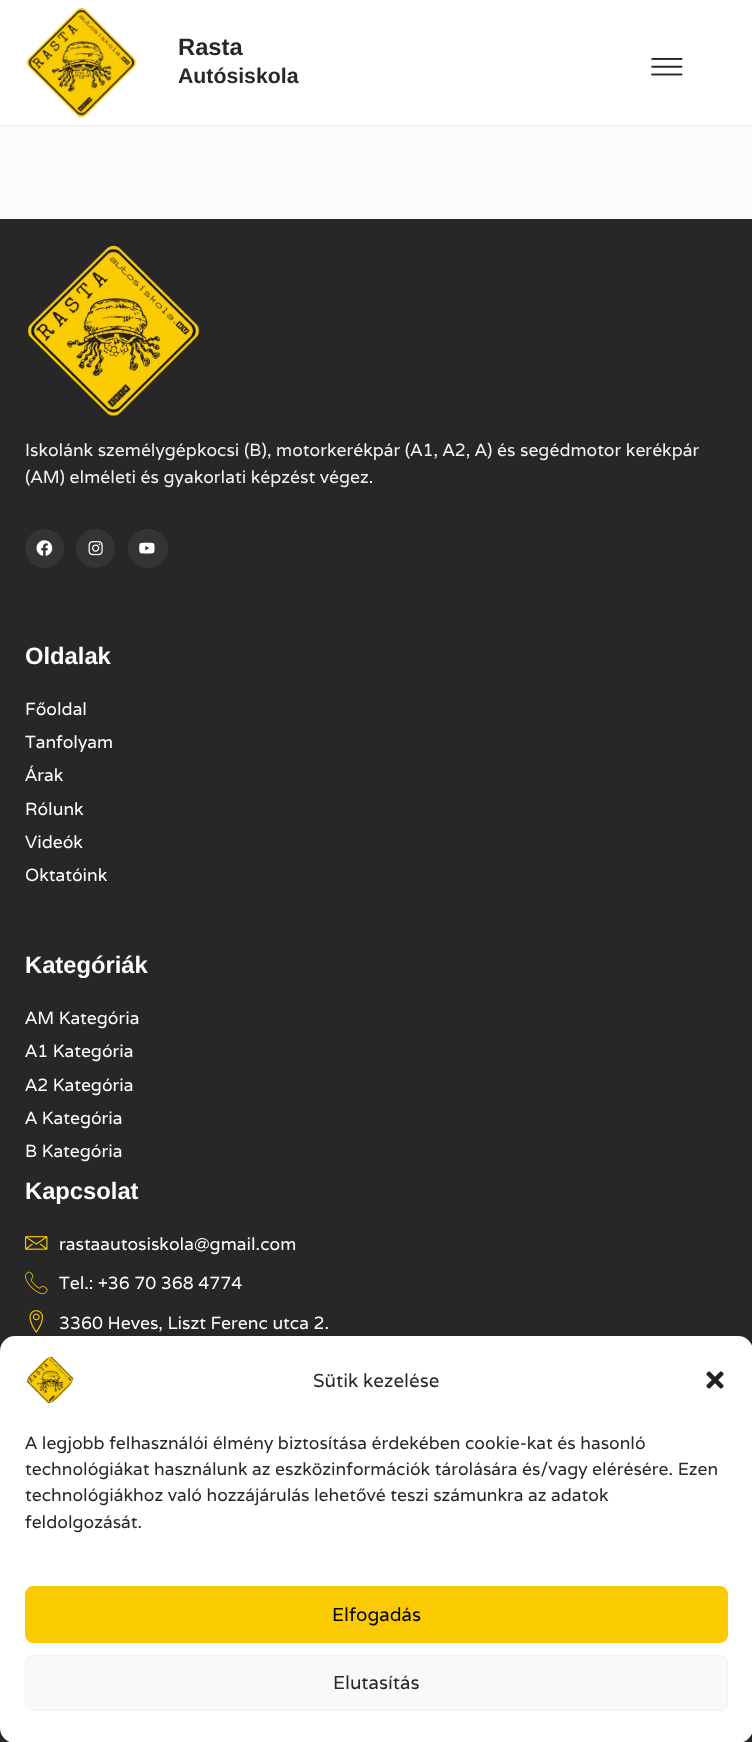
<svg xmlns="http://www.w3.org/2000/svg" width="752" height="1742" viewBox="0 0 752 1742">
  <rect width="100%" height="100%" fill="rgb(250,251,252)"/>
  <rect x="0" y="0" width="752" height="125" fill="rgb(255,255,255)"/>
  <rect x="0" y="125" width="752" height="1" fill="rgb(237,237,237)"/>
  <image x="26" y="7" width="111" height="111" href="pic1.png"/>
  <text x="178" y="55" font-family="Liberation Sans" font-size="23.75" font-weight="bold" fill="rgb(39,39,39)">Rasta</text>
  <text x="178" y="83" font-family="Liberation Sans" font-size="21.25" font-weight="bold" fill="rgb(39,39,39)">Autósiskola</text>
  <image x="651" y="57" width="32" height="19" href="pic2.png"/>
  <rect x="0" y="219" width="752" height="1523" fill="rgb(39,39,39)"/>
  <image x="28" y="245" width="171" height="171" href="pic3.png"/>
  <g font-family="Varela" font-size="17.5" fill="rgb(243,243,243)">
    <text>
      <tspan x="25" y="456">Iskolánk személygépkocsi (B), motorkerékpár (A1, A2, A) és segédmotor kerékpár</tspan>
      <tspan x="25" y="483">(AM) elméleti és gyakorlati képzést végez.</tspan>
    </text>
  </g>
  <circle cx="44.5" cy="548.5" r="19.5" fill="rgb(52,52,52)"/>
  <image x="36" y="540" width="17" height="16" href="pic4.png"/>
  <circle cx="95.5" cy="548.5" r="19.5" fill="rgb(52,52,52)"/>
  <image x="88" y="541" width="15" height="15" href="pic5.png"/>
  <rect x="128" y="529" width="40" height="39" rx="19.5" fill="rgb(52,52,52)"/>
  <image x="139" y="542" width="16" height="12" href="pic6.png"/>
  <text x="25" y="664" font-family="Liberation Sans" font-size="23.75" font-weight="bold" fill="rgb(255,255,255)">Oldalak</text>
  <g font-family="Varela" font-size="17.5" fill="rgb(255,255,255)">
    <text>
      <tspan x="25" y="715">Főoldal</tspan>
      <tspan x="25" y="748">Tanfolyam</tspan>
      <tspan x="25" y="781">Árak</tspan>
      <tspan x="25" y="815">Rólunk</tspan>
      <tspan x="25" y="848">Videók</tspan>
      <tspan x="25" y="881">Oktatóink</tspan>
    </text>
  </g>
  <text x="25" y="973" font-family="Liberation Sans" font-size="23.75" font-weight="bold" fill="rgb(255,255,255)">Kategóriák</text>
  <g font-family="Varela" font-size="17.5" fill="rgb(255,255,255)">
    <text>
      <tspan x="25" y="1024">AM Kategória</tspan>
      <tspan x="25" y="1057">A1 Kategória</tspan>
      <tspan x="25" y="1091">A2 Kategória</tspan>
      <tspan x="25" y="1124">A Kategória</tspan>
      <tspan x="25" y="1157">B Kategória</tspan>
    </text>
  </g>
  <text x="25" y="1199" font-family="Liberation Sans" font-size="23.75" font-weight="bold" fill="rgb(255,255,255)">Kapcsolat</text>
  <image x="25" y="1236" width="23" height="14" href="pic7.png"/>
  <text x="59" y="1250" font-family="Varela" font-size="17.5" fill="rgb(255,255,255)">rastaautosiskola@gmail.com</text>
  <image x="25" y="1271" width="23" height="24" href="pic8.png"/>
  <text x="59" y="1289" font-family="Varela" font-size="17.5" fill="rgb(255,255,255)">Tel.: +36 70 368 4774</text>
  <image x="29" y="1310" width="14" height="23" href="pic9.png"/>
  <text x="59" y="1329" font-family="Varela" font-size="17.5" fill="rgb(255,255,255)">3360 Heves, Liszt Ferenc utca 2.</text>
  <rect x="0" y="1336" width="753" height="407" rx="15" fill="rgb(255,255,255)"/>
  <image x="26" y="1356" width="48" height="48" href="pic10.png"/>
  <text x="313" y="1387" font-family="Varela" font-size="18.75" fill="rgb(39,39,39)">Sütik kezelése</text>
  <image x="706" y="1371" width="18" height="18" href="pic11.png"/>
  <g font-family="Varela" font-size="17.5" fill="rgb(39,39,39)">
    <text>
      <tspan x="25" y="1449">A legjobb felhasználói élmény biztosítása érdekében cookie-kat és hasonló</tspan>
      <tspan x="25" y="1475">technológiákat használunk az eszközinformációk tárolására és/vagy elérésére. Ezen</tspan>
      <tspan x="25" y="1501">technológiákhoz való hozzájárulás lehetővé teszi számunkra az adatok</tspan>
      <tspan x="25" y="1528">feldolgozását.</tspan>
    </text>
  </g>
  <rect x="25.5" y="1586.5" width="702" height="56" rx="7.5" fill="rgb(250,203,0)" stroke="rgb(250,203,0)"/>
  <text x="332" y="1621" font-family="Varela" font-size="18.75" fill="rgb(0,0,0)">Elfogadás</text>
  <rect x="25.5" y="1655.5" width="702" height="55" rx="7.5" fill="rgb(249,249,249)" stroke="rgb(242,242,242)"/>
  <text x="333" y="1689" font-family="Varela" font-size="18.75" fill="rgb(39,39,39)">Elutasítás</text>
</svg>
